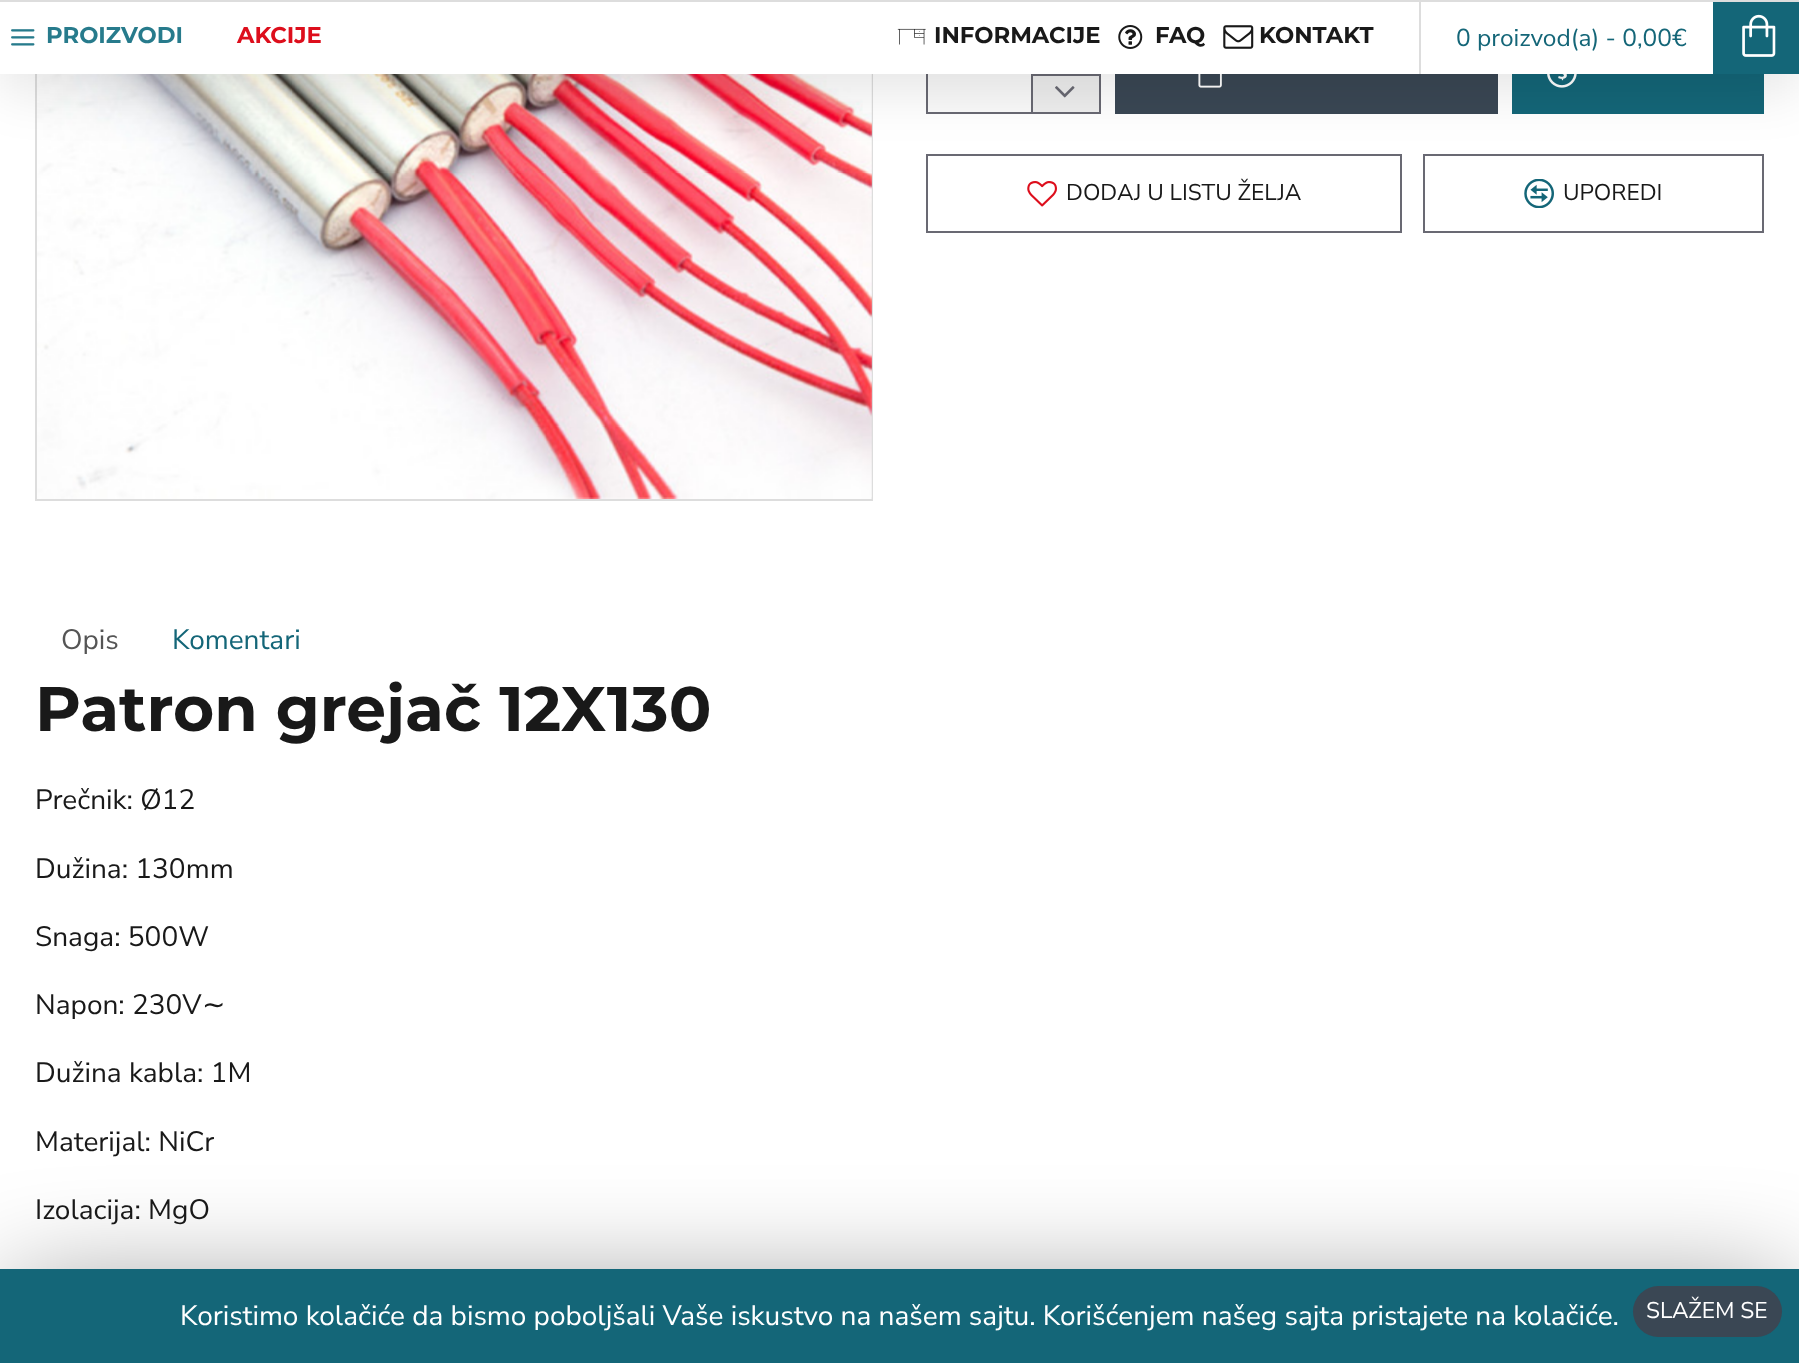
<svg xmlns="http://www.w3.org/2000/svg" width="1799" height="1363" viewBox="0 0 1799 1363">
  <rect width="100%" height="100%" fill="rgb(255,255,255)"/>
  <rect x="36" y="-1" width="836" height="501" fill="none" stroke="rgb(221,221,221)" stroke-width="2"/>
  <image x="37" y="74" width="835" height="425" href="pic6.png"/>
  <rect x="927" y="33" width="173" height="80" fill="none" stroke="rgb(105,105,115)" stroke-width="2"/>
  <rect x="928" y="74" width="103" height="38" fill="rgb(250,250,250)"/>
  <rect x="1033" y="76" width="66" height="36" fill="rgb(238,238,238)"/>
  <rect x="1031" y="74" width="68" height="2" fill="rgb(105,105,115)"/>
  <rect x="1031" y="74" width="2" height="38" fill="rgb(105,105,115)"/>
  <image x="1055" y="86" width="20" height="12" href="pic7.png"/>
  <rect x="1115" y="74" width="383" height="40" fill="rgb(58,71,84)"/>
  <image x="1198" y="74" width="24" height="14" href="pic8.png"/>
  <rect x="1512" y="74" width="252" height="40" fill="rgb(20,102,120)"/>
  <image x="1547" y="74" width="30" height="14" href="pic9.png"/>
  <rect x="927" y="155" width="474" height="77" fill="none" stroke="rgb(105,105,115)" stroke-width="2"/>
  <rect x="1424" y="155" width="339" height="77" fill="none" stroke="rgb(105,105,115)" stroke-width="2"/>
  <rect x="0" y="-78" width="1799" height="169" fill="rgba(0,0,0,0.1)" filter="blur(26px)"/>
  <rect x="0" y="2" width="1713" height="72" fill="rgb(255,255,255)"/>
  <rect x="0" y="0" width="1799" height="2" fill="rgb(221,221,221)"/>
  <image x="11" y="29" width="24" height="17" href="pic1.png"/>
  <text x="46" y="43" font-family="Montserrat" font-size="22.75" font-weight="100" fill="rgb(39,123,140)">PROIZVODI</text>
  <text x="237" y="43" font-family="Montserrat" font-size="22.75" font-weight="100" fill="rgb(221,14,28)">AKCIJE</text>
  <image x="897" y="28" width="29" height="17" href="pic2.png"/>
  <text x="934" y="43" font-family="Montserrat" font-size="22.75" font-weight="100" fill="rgb(25,25,25)">INFORMACIJE</text>
  <image x="1118" y="25" width="25" height="24" href="pic3.png"/>
  <text x="1155" y="43" font-family="Montserrat" font-size="22.75" font-weight="100" fill="rgb(25,25,25)">FAQ</text>
  <image x="1223" y="25" width="31" height="24" href="pic4.png"/>
  <text x="1259" y="43" font-family="Montserrat" font-size="22.75" font-weight="100" fill="rgb(25,25,25)">KONTAKT</text>
  <rect x="1419" y="0" width="2" height="74" fill="rgb(221,221,221)"/>
  <text x="1456" y="46" font-family="Nunito Sans" font-size="24.5" font-weight="200" fill="rgb(20,102,120)">0 proizvod(a) - 0,00€</text>
  <rect x="1713" y="2" width="86" height="72" fill="rgb(20,102,120)"/>
  <image x="1742" y="14" width="34" height="43" href="pic5.png"/>
  <image x="1027" y="181" width="30" height="26" href="pic10.png"/>
  <text x="1066" y="200" font-family="Nunito Sans" font-size="22.75" font-weight="200" fill="rgb(25,25,25)">DODAJ U LISTU ŽELJA</text>
  <image x="1524" y="179" width="30" height="29" href="pic11.png"/>
  <text x="1563" y="200" font-family="Nunito Sans" font-size="22.75" font-weight="200" fill="rgb(25,25,25)">UPOREDI</text>
  <text x="61" y="649" font-family="Nunito Sans" font-size="28" font-weight="200" fill="rgb(85,85,85)">Opis</text>
  <text x="172" y="649" font-family="Nunito Sans" font-size="28" font-weight="200" fill="rgb(20,102,120)">Komentari</text>
  <text x="35" y="731" font-family="Montserrat" font-size="63" font-weight="100" fill="rgb(25,25,25)">Patron grejač 12X130</text>
  <g font-family="Nunito Sans" font-size="28" font-weight="200" fill="rgb(25,25,25)">
    <text x="35" y="809">Prečnik: Ø12</text>
    <text x="35" y="878">Dužina: 130mm</text>
    <text x="35" y="946">Snaga: 500W</text>
    <text x="35" y="1014">Napon: 230V</text>
  </g>
  <text x="202" y="1014" font-family="DejaVu Sans" font-size="28" fill="rgb(25,25,25)">∼</text>
  <g font-family="Nunito Sans" font-size="28" font-weight="200" fill="rgb(25,25,25)">
    <text x="35" y="1082">Dužina kabla: 1M</text>
    <text x="35" y="1151">Materijal: NiCr</text>
    <text x="35" y="1219">Izolacija: MgO</text>
  </g>
  <rect x="9" y="1295" width="1781" height="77" fill="rgba(0,0,0,0.5)" filter="blur(57px)"/>
  <rect x="0" y="1269" width="1799" height="94" fill="rgb(20,102,120)"/>
  <text x="180" y="1325" font-family="Nunito Sans" font-size="28" font-weight="200" fill="rgb(255,255,255)">Koristimo kolačiće da bismo poboljšali Vaše iskustvo na našem sajtu. Korišćenjem našeg sajta pristajete na kolačiće.</text>
  <rect x="1633" y="1286" width="149" height="51" rx="25.5" fill="rgb(58,71,84)"/>
  <text x="1646" y="1318" font-family="Nunito Sans" font-size="22.75" font-weight="200" fill="rgb(255,255,255)">SLAŽEM SE</text>
</svg>
